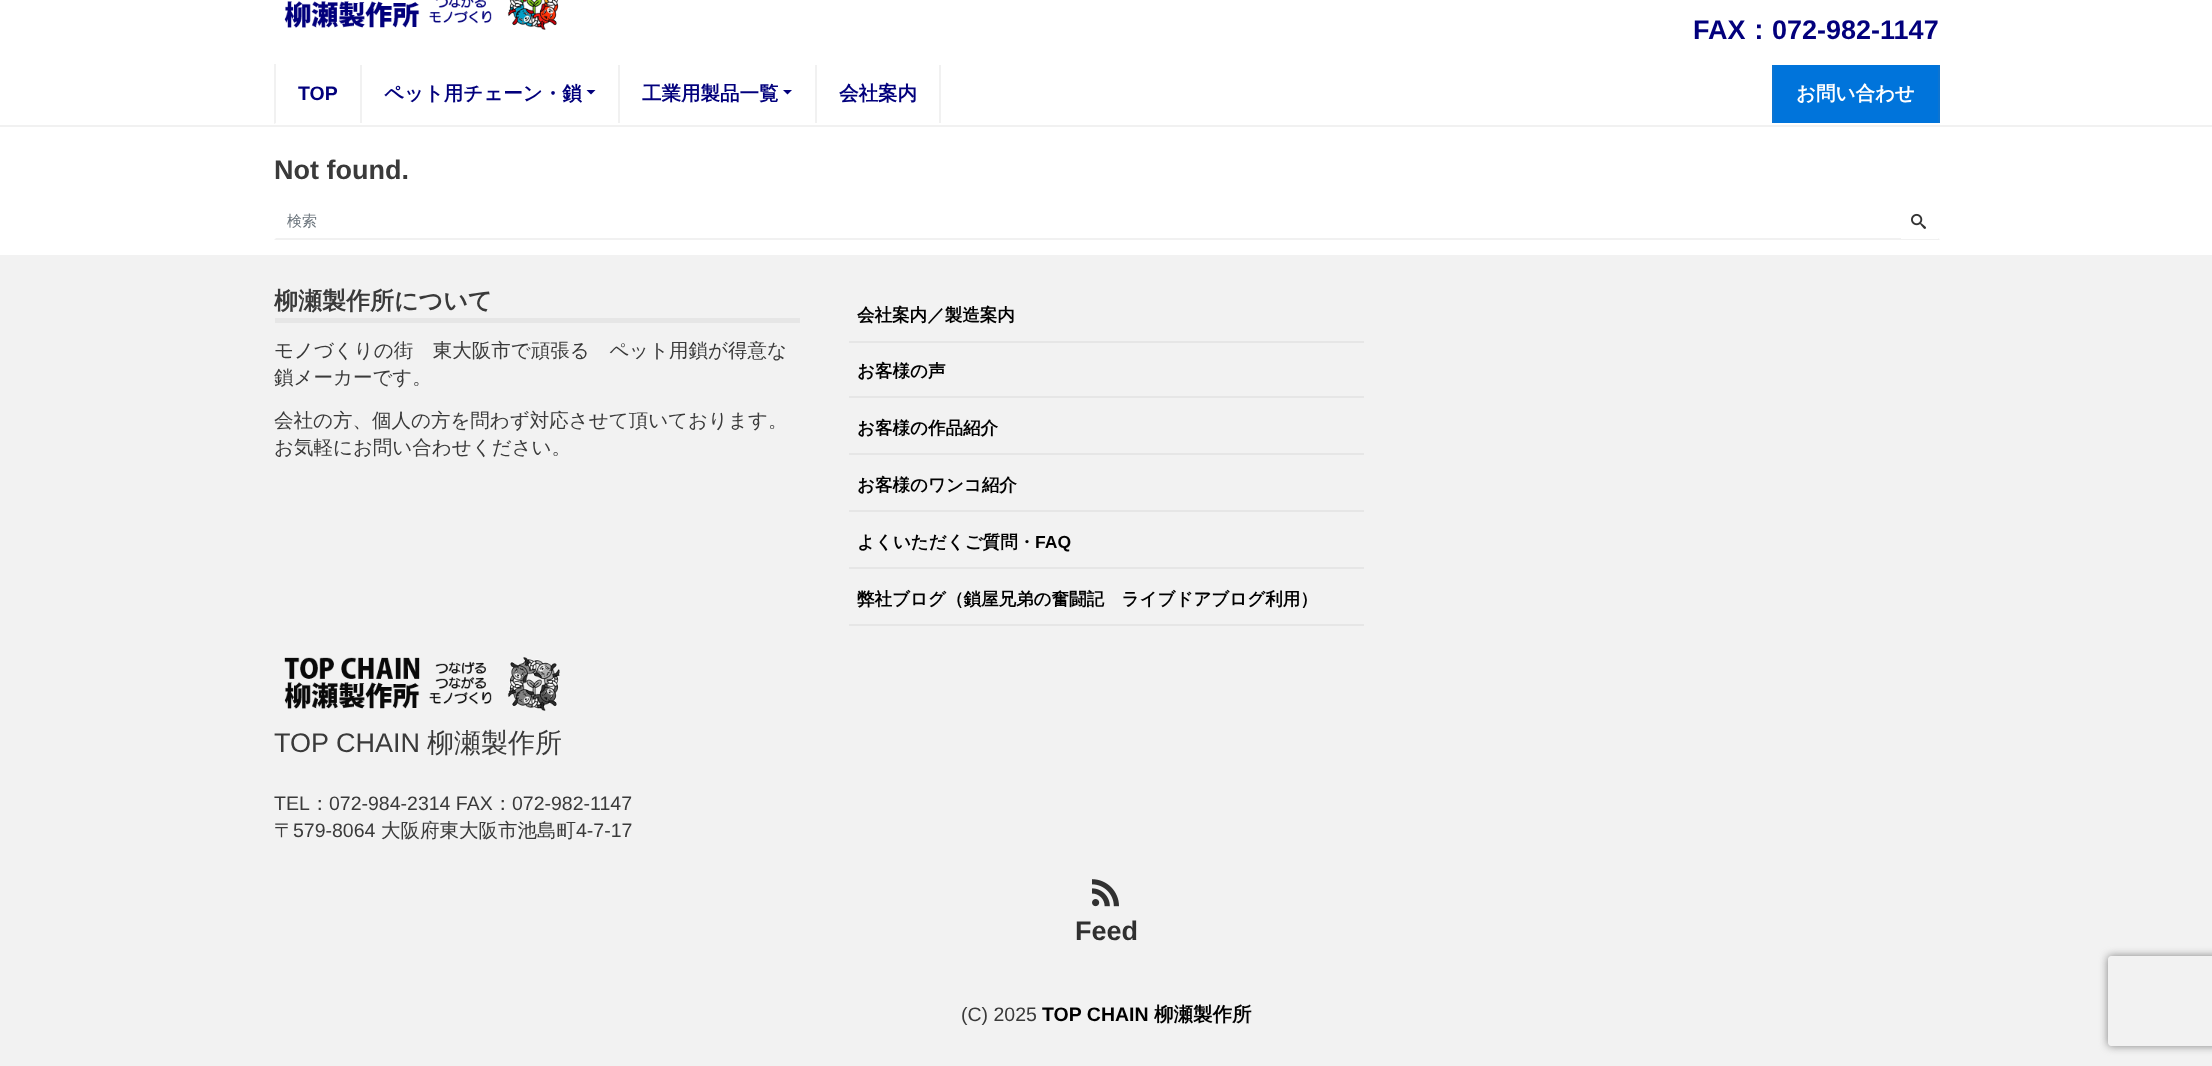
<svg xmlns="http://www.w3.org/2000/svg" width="2212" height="1066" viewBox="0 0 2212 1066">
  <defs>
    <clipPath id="clip1"><path d="M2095 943H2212V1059H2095ZM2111 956H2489C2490.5 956 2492 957.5 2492 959V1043C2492 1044.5 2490.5 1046 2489 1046H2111C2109.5 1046 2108 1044.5 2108 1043V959C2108 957.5 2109.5 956 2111 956Z" clip-rule="evenodd"/></clipPath>
  </defs>
  <rect width="100%" height="100%" fill="rgb(255,255,255)"/>
  <image x="284" y="0" width="275" height="30" href="pic1.png"/>
  <text x="1693" y="39" font-family="Liberation Sans" font-size="27" font-weight="bold" fill="rgb(2,0,124)">FAX</text>
  <text x="1745" y="39" font-family="WenQuanYi Zen Hei" font-size="27" font-weight="bold" fill="rgb(2,0,124)">：</text>
  <text x="1772" y="39" font-family="Liberation Sans" font-size="27" font-weight="bold" fill="rgb(2,0,124)">072-982-1147</text>
  <rect x="0" y="125" width="2212" height="2" fill="rgb(241,241,241)"/>
  <path d="M274 124V64H276V123Z" fill="rgb(241,241,241)"/>
  <rect x="360" y="65" width="2" height="58" fill="rgb(241,241,241)"/>
  <text x="298" y="100" font-family="Liberation Sans" font-size="19.5" font-weight="bold" fill="rgb(2,0,124)">TOP</text>
  <rect x="618" y="65" width="2" height="58" fill="rgb(241,241,241)"/>
  <text x="384" y="100" font-family="WenQuanYi Zen Hei" font-size="19.5" font-weight="bold" fill="rgb(2,0,124)">ペット用チェーン・鎖</text>
  <path d="M586.5 90H595.5L591 94.5Z" fill="rgb(2,0,124)"/>
  <rect x="815" y="65" width="2" height="58" fill="rgb(241,241,241)"/>
  <text x="642" y="100" font-family="WenQuanYi Zen Hei" font-size="19.5" font-weight="bold" fill="rgb(2,0,124)">工業用製品一覧</text>
  <path d="M783 90H792L787.5 94.5Z" fill="rgb(2,0,124)"/>
  <rect x="939" y="65" width="2" height="58" fill="rgb(241,241,241)"/>
  <text x="839" y="100" font-family="WenQuanYi Zen Hei" font-size="19.5" font-weight="bold" fill="rgb(2,0,124)">会社案内</text>
  <rect x="1774" y="65" width="164" height="58" fill="rgb(0,116,219)"/>
  <rect x="1938" y="65" width="2" height="58" fill="rgb(12,116,209)"/>
  <rect x="1772" y="65" width="2" height="58" fill="rgb(12,116,209)"/>
  <text x="1796" y="100" font-family="WenQuanYi Zen Hei" font-size="19.5" font-weight="bold" fill="rgb(255,255,255)">お問い合わせ</text>
  <text x="274" y="179" font-family="Liberation Sans" font-size="27" font-weight="bold" fill="rgb(58,58,58)">Not found.</text>
  <path d="M1940 240H274L276 238H1938Z" fill="rgb(241,241,241)"/>
  <text x="287" y="226" font-family="WenQuanYi Zen Hei" font-size="15" font-weight="500" fill="rgb(108,117,125)">検索</text>
  <rect x="1901" y="238" width="37" height="1" fill="rgb(255,255,255)"/>
  <image x="1911" y="213" width="15" height="16" href="pic2.png"/>
  <rect x="0" y="255" width="2212" height="811" fill="rgb(242,242,242)"/>
  <rect x="275" y="318" width="525" height="5" fill="rgb(230,230,230)"/>
  <text x="274" y="309" font-family="WenQuanYi Zen Hei" font-size="24" font-weight="bold" fill="rgb(58,58,58)">柳瀬製作所について</text>
  <g font-family="WenQuanYi Zen Hei" font-size="19.5" font-weight="500" fill="rgb(58,58,58)">
    <text>
      <tspan x="274" y="357">モノづくりの街　東大阪市で頑張る　ペット用鎖が得意な</tspan>
      <tspan x="274" y="384">鎖メーカーです。</tspan>
    </text>
    <text>
      <tspan x="274" y="427">会社の方、個人の方を問わず対応させて頂いております。</tspan>
      <tspan x="274" y="454">お気軽にお問い合わせください。</tspan>
    </text>
  </g>
  <rect x="849" y="341" width="515" height="2" fill="rgb(230,230,230)"/>
  <text x="857" y="321" font-family="WenQuanYi Zen Hei" font-size="17.55" font-weight="bold" fill="rgb(0,0,0)">会社案内／製造案内</text>
  <rect x="849" y="396" width="515" height="2" fill="rgb(230,230,230)"/>
  <text x="857" y="377" font-family="WenQuanYi Zen Hei" font-size="17.55" font-weight="bold" fill="rgb(0,0,0)">お客様の声</text>
  <rect x="849" y="453" width="515" height="2" fill="rgb(230,230,230)"/>
  <text x="857" y="434" font-family="WenQuanYi Zen Hei" font-size="17.55" font-weight="bold" fill="rgb(0,0,0)">お客様の作品紹介</text>
  <rect x="849" y="510" width="515" height="2" fill="rgb(230,230,230)"/>
  <text x="857" y="491" font-family="WenQuanYi Zen Hei" font-size="17.55" font-weight="bold" fill="rgb(0,0,0)">お客様のワンコ紹介</text>
  <rect x="849" y="567" width="515" height="2" fill="rgb(230,230,230)"/>
  <text x="857" y="548" font-family="WenQuanYi Zen Hei" font-size="17.55" font-weight="bold" fill="rgb(0,0,0)">よくいただくご質問・</text>
  <text x="1035" y="548" font-family="Liberation Sans" font-size="17.55" font-weight="bold" fill="rgb(0,0,0)">FAQ</text>
  <rect x="849" y="624" width="515" height="2" fill="rgb(230,230,230)"/>
  <text x="857" y="605" font-family="WenQuanYi Zen Hei" font-size="17.55" font-weight="bold" fill="rgb(0,0,0)">弊社ブログ（鎖屋兄弟の奮闘記　ライブドアブログ利用）</text>
  <image x="284" y="657" width="276" height="54" href="pic3.png"/>
  <text x="274" y="752" font-family="Liberation Sans" font-size="27" fill="rgb(58,58,58)">TOP CHAIN</text>
  <text x="427" y="752" font-family="WenQuanYi Zen Hei" font-size="27" font-weight="500" fill="rgb(58,58,58)">柳瀬製作所</text>
  <text x="274" y="810" font-family="Liberation Sans" font-size="19.5" fill="rgb(58,58,58)">TEL</text>
  <text x="310" y="810" font-family="WenQuanYi Zen Hei" font-size="19.5" font-weight="500" fill="rgb(58,58,58)">：</text>
  <text x="329" y="810" font-family="Liberation Sans" font-size="19.5" fill="rgb(58,58,58)">072-984-2314 FAX</text>
  <text x="493" y="810" font-family="WenQuanYi Zen Hei" font-size="19.5" font-weight="500" fill="rgb(58,58,58)">：</text>
  <text x="512" y="810" font-family="Liberation Sans" font-size="19.5" fill="rgb(58,58,58)">072-982-1147</text>
  <text x="274" y="837" font-family="WenQuanYi Zen Hei" font-size="19.5" font-weight="500" fill="rgb(58,58,58)">〒</text>
  <text x="293" y="837" font-family="Liberation Sans" font-size="19.5" fill="rgb(58,58,58)">579-8064</text>
  <text x="381" y="837" font-family="WenQuanYi Zen Hei" font-size="19.5" font-weight="500" fill="rgb(58,58,58)">大阪府東大阪市池島町</text>
  <text x="576" y="837" font-family="Liberation Sans" font-size="19.5" fill="rgb(58,58,58)">4-7-17</text>
  <image x="1092" y="879" width="27" height="28" href="pic4.png"/>
  <text x="1075" y="940" font-family="Liberation Sans" font-size="27" font-weight="bold" fill="rgb(48,48,48)">Feed</text>
  <text x="961" y="1021" font-family="Liberation Sans" font-size="19.5" fill="rgb(58,58,58)">(C) 2025</text>
  <text x="1042" y="1021" font-family="Liberation Sans" font-size="19.5" font-weight="bold" fill="rgb(0,0,0)">TOP CHAIN</text>
  <text x="1154" y="1021" font-family="WenQuanYi Zen Hei" font-size="19.5" font-weight="bold" fill="rgb(0,0,0)">柳瀬製作所</text>
  <g clip-path="url(#clip1)">
    <rect x="2108" y="956" width="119" height="90" rx="3" fill="rgb(128,128,128)" filter="blur(4px)"/>
  </g>
</svg>
